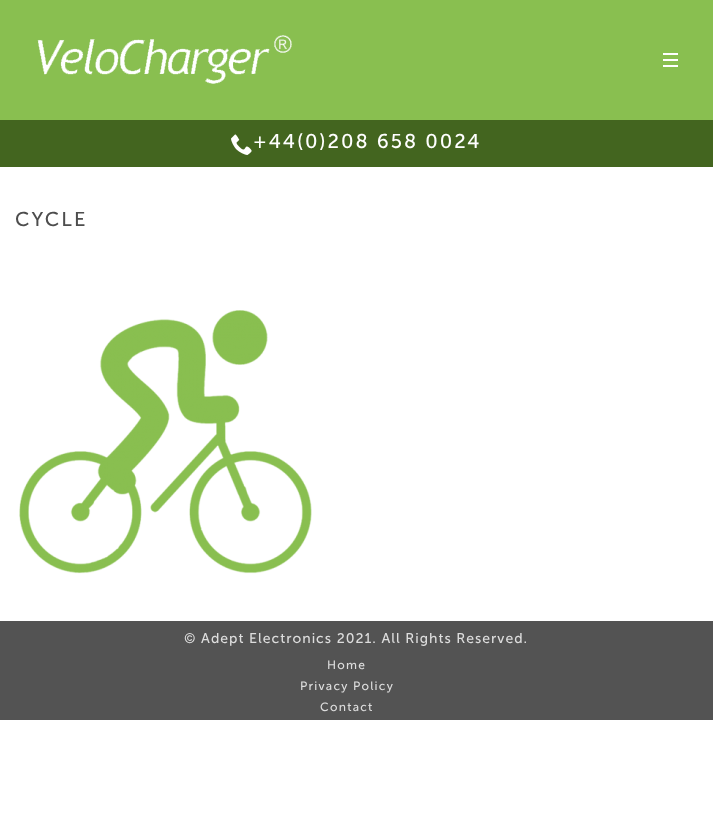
<svg xmlns="http://www.w3.org/2000/svg" width="713" height="835" viewBox="0 0 713 835">
  <rect width="100%" height="100%" fill="rgb(255,255,255)"/>
  <rect x="0" y="0" width="713" height="120" fill="rgb(137,191,80)"/>
  <image x="37" y="35" width="255" height="49" href="pic1.png"/>
  <rect x="663" y="59" width="15" height="2" fill="rgb(255,255,255)"/>
  <rect x="663" y="53" width="15" height="2" fill="rgb(255,255,255)"/>
  <rect x="663" y="65" width="15" height="2" fill="rgb(255,255,255)"/>
  <rect x="0" y="120" width="713" height="47" fill="rgb(67,101,31)"/>
  <image x="231" y="134" width="21" height="21" href="pic2.png"/>
  <text x="253" y="148" font-family="'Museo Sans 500'" font-size="20" letter-spacing="2" fill="rgb(255,255,255)">+44(0)208 658 0024</text>
  <text x="15" y="226" font-family="'Museo Sans 500'" font-size="20" letter-spacing="2" fill="rgb(77,77,77)">CYCLE</text>
  <image x="19" y="310" width="293" height="264" href="pic3.png"/>
  <rect x="0" y="621" width="713" height="99" fill="rgb(83,83,83)"/>
  <text x="184" y="643" font-family="'Museo Sans 500'" font-size="14" letter-spacing="1" fill="rgb(221,221,221)">© Adept Electronics 2021. All Rights Reserved.</text>
  <g font-family="'Museo Sans 500'" font-size="12" letter-spacing="1.25" fill="rgb(221,221,221)">
    <text x="327" y="669">Home</text>
    <text x="300" y="690">Privacy Policy</text>
    <text x="320" y="711">Contact</text>
  </g>
</svg>
